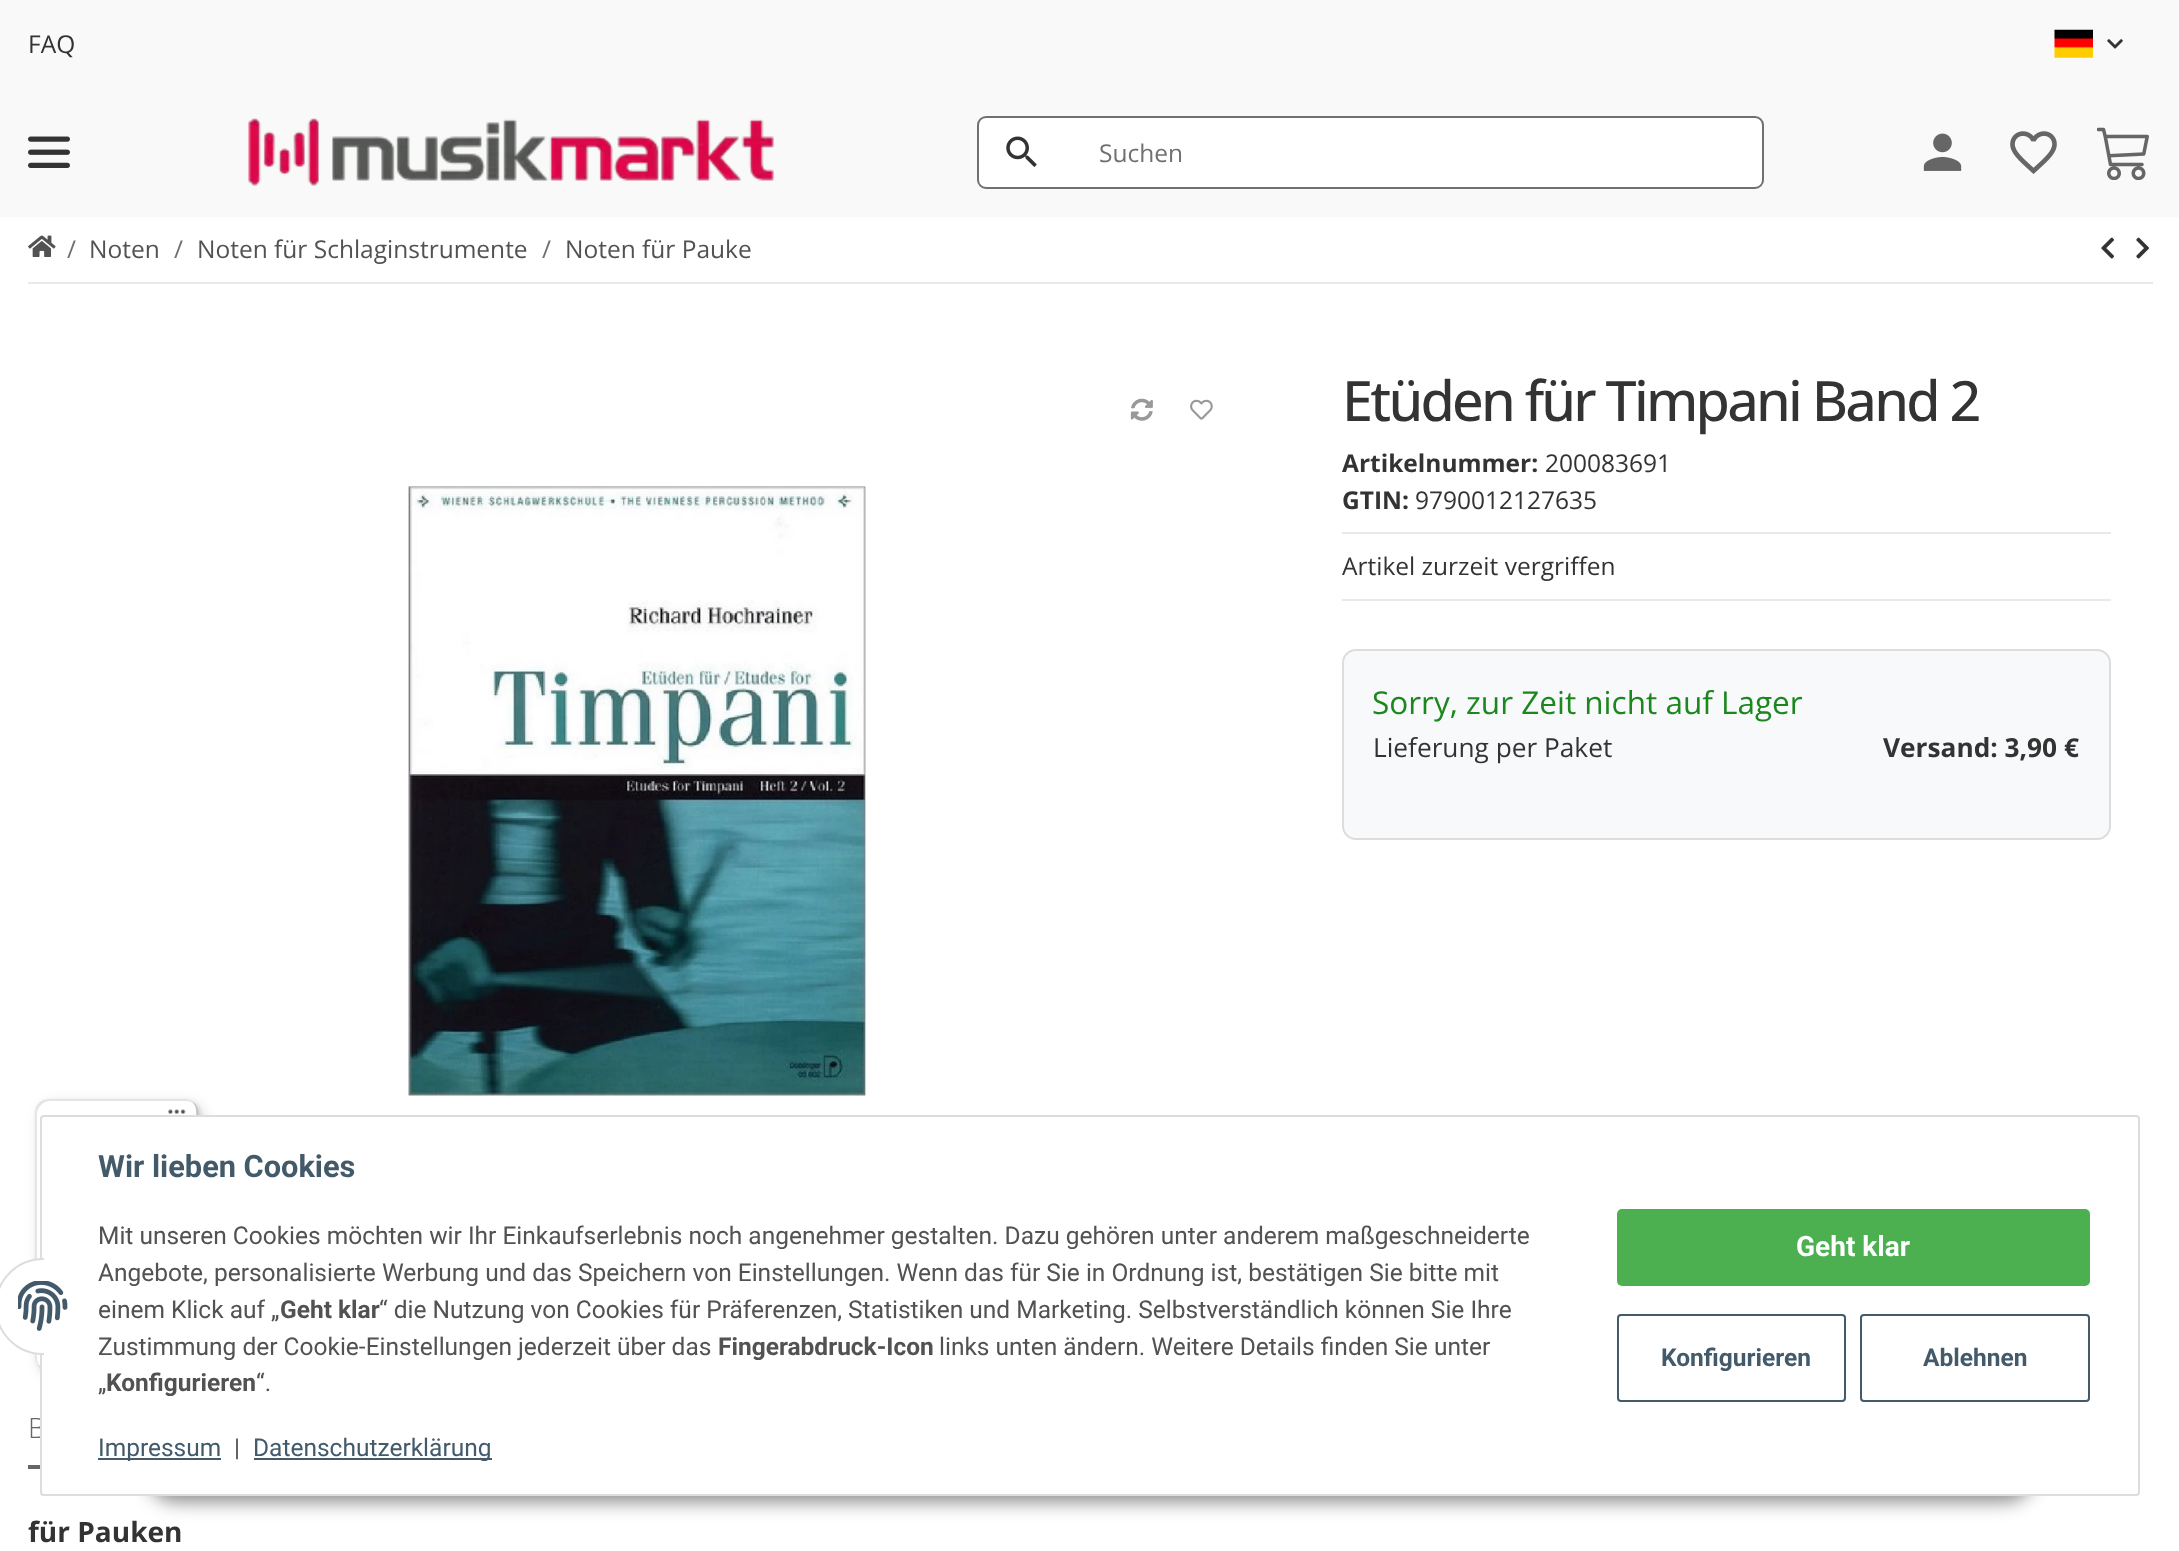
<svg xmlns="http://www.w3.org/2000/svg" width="2179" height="1551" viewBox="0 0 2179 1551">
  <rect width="100%" height="100%" fill="rgb(255,255,255)"/>
  <rect x="0" y="0" width="2179" height="217" fill="rgb(249,249,249)"/>
  <text x="28" y="53" font-family="Open Sans" font-size="24.5" fill="rgb(51,51,51)">FAQ</text>
  <image x="2054" y="29" width="39" height="29" href="pic1.png"/>
  <image x="2107" y="39" width="16" height="10" href="pic2.png"/>
  <image x="28" y="136" width="42" height="32" href="pic3.png"/>
  <image x="248" y="118" width="526" height="68" href="pic4.png"/>
  <rect x="978" y="117" width="785" height="71" rx="8" fill="rgb(255,255,255)" stroke="rgb(112,112,112)" stroke-width="2"/>
  <image x="1006" y="136" width="31" height="31" href="pic5.png"/>
  <text x="1099" y="162" font-family="Open Sans" font-size="24.5" fill="rgb(112,112,112)">Suchen</text>
  <image x="1923" y="133" width="39" height="38" href="pic6.png"/>
  <image x="2010" y="131" width="47" height="43" href="pic7.png"/>
  <image x="2097" y="127" width="52" height="53" href="pic8.png"/>
  <image x="28" y="235" width="28" height="22" href="pic9.png"/>
  <text x="67" y="258" font-family="Open Sans" font-size="24.5" fill="rgb(112,112,112)">/</text>
  <text x="89" y="258" font-family="Open Sans" font-size="24.5" fill="rgb(82,82,82)">Noten</text>
  <text x="174" y="258" font-family="Open Sans" font-size="24.5" fill="rgb(112,112,112)">/</text>
  <text x="197" y="258" font-family="Open Sans" font-size="24.5" fill="rgb(82,82,82)">Noten für Schlaginstrumente</text>
  <text x="542" y="258" font-family="Open Sans" font-size="24.5" fill="rgb(112,112,112)">/</text>
  <text x="565" y="258" font-family="Open Sans" font-size="24.5" fill="rgb(82,82,82)">Noten für Pauke</text>
  <image x="2101" y="237" width="13" height="22" href="pic10.png"/>
  <image x="2136" y="237" width="13" height="22" href="pic11.png"/>
  <rect x="28" y="282" width="2125" height="2" fill="rgb(233,233,233)"/>
  <text x="1342" y="421" font-family="Open Sans" font-size="55.75" font-weight="500" letter-spacing="-2.8" fill="rgb(51,51,51)">Etüden für Timpani Band 2</text>
  <rect x="1342" y="532" width="769" height="2" fill="rgb(233,233,233)"/>
  <text x="1342" y="472" font-family="Open Sans" font-size="24.5" font-weight="bold" fill="rgb(51,51,51)">Artikelnummer:</text>
  <text x="1545" y="472" font-family="Open Sans" font-size="24.5" fill="rgb(51,51,51)">200083691</text>
  <text x="1342" y="509" font-family="Open Sans" font-size="24.5" font-weight="bold" fill="rgb(51,51,51)">GTIN:</text>
  <text x="1415" y="509" font-family="Open Sans" font-size="24.5" fill="rgb(51,51,51)">9790012127635</text>
  <rect x="1342" y="599" width="769" height="2" fill="rgb(233,233,233)"/>
  <text x="1342" y="575" font-family="Open Sans" font-size="24.5" fill="rgb(51,51,51)">Artikel zurzeit vergriffen</text>
  <rect x="1343" y="650" width="767" height="189" rx="13" fill="rgb(248,249,250)" stroke="rgb(221,221,221)" stroke-width="2"/>
  <text x="1372" y="714" font-family="Open Sans" font-size="31.5" fill="rgb(28,135,30)">Sorry, zur Zeit nicht auf Lager</text>
  <text x="1373" y="757" font-family="Open Sans" font-size="26.25" fill="rgb(51,51,51)">Lieferung per Paket</text>
  <text x="1883" y="757" font-family="Open Sans" font-size="26.25" font-weight="bold" fill="rgb(51,51,51)">Versand: 3,90 €</text>
  <image x="1130" y="398" width="23" height="23" href="pic12.png"/>
  <image x="1190" y="399" width="23" height="21" href="pic13.png"/>
  <image x="408" y="486" width="458" height="610" href="pic14.png"/>
  <text x="28" y="1438" font-family="Open Sans" font-size="28" font-weight="300" fill="rgb(102,102,102)">B</text>
  <rect x="28" y="1465" width="12" height="4" fill="rgb(102,102,102)"/>
  <text x="28" y="1542" font-family="Open Sans" font-size="28" font-weight="bold" fill="rgb(51,51,51)">für Pauken</text>
  <rect x="40" y="1104" width="163" height="272" rx="14" fill="rgba(0,0,0,0.15)" filter="blur(7px)"/>
  <rect x="37" y="1101" width="163" height="271" rx="14" fill="rgba(0,0,0,0.15)" filter="blur(2px)"/>
  <rect x="35" y="1099" width="163" height="271" rx="14" fill="rgb(255,255,255)"/>
  <path d="M51 1101H186C189 1101 193 1102 195 1105C193 1101 189 1099 184 1099H49C41 1099 35 1105 35 1113V1356C35 1360 37 1364 40 1366C38 1364 37 1361 37 1358V1115C37 1107 43 1101 51 1101Z" fill="rgba(0,0,0,0.1)"/>
  <path d="M38 1364C40 1368 44 1370 49 1370H184C192 1370 198 1364 198 1356V1113C198 1108 196 1104 192 1102C195 1104 196 1108 196 1111V1354C196 1362 190 1368 182 1368H47C44 1368 40 1367 38 1364Z" fill="rgba(0,0,0,0.2)"/>
  <path d="M40 1366C42 1369 45 1370 49 1370H184C192 1370 198 1364 198 1356V1113C198 1108 196 1104 192 1102C195 1104 197 1108 197 1112V1355C197 1363 190 1369 183 1369H48C45 1369 42 1368 40 1366Z" fill="rgba(50,50,50,0.2)"/>
  <path d="M40 1366C42 1369 45 1370 49 1370H184C192 1370 198 1364 198 1356V1113C198 1109 197 1106 194 1104C196 1106 197 1109 197 1112V1355C197 1363 191 1369 183 1369H48C45 1369 42 1368 40 1366Z" fill="rgba(255,255,255,0.3)"/>
  <image x="168" y="1109" width="18" height="5" href="pic15.png"/>
  <rect x="147" y="1446" width="1887" height="56" rx="28" fill="rgba(0,0,0,0.45)" filter="blur(9px)"/>
  <rect x="41" y="1116" width="2098" height="379" rx="3" fill="rgb(255,255,255)" stroke="rgb(221,221,221)" stroke-width="2"/>
  <rect x="-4" y="1259" width="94" height="95" rx="47" fill="rgb(255,255,255)" stroke="rgb(221,221,221)" stroke-width="2"/>
  <rect x="44" y="1258" width="47" height="97" fill="rgb(255,255,255)"/>
  <image x="18" y="1281" width="50" height="50" href="pic16.png"/>
  <text x="98" y="1177" font-family="Roboto" font-size="30.75" font-weight="bold" fill="rgb(67,90,107)">Wir lieben Cookies</text>
  <g font-family="Roboto" font-size="24.5" fill="rgb(82,82,82)">
    <text>
      <tspan x="98" y="1244">Mit unseren Cookies möchten wir Ihr Einkaufserlebnis noch angenehmer gestalten. Dazu gehören unter anderem maßgeschneiderte</tspan>
      <tspan x="98" y="1281">Angebote, personalisierte Werbung und das Speichern von Einstellungen. Wenn das für Sie in Ordnung ist, bestätigen Sie bitte mit</tspan>
      <tspan x="98" y="1318">einem Klick auf „</tspan>
    </text>
  </g>
  <text x="280" y="1318" font-family="Roboto" font-size="24.5" font-weight="bold" fill="rgb(82,82,82)">Geht klar</text>
  <g font-family="Roboto" font-size="24.5" fill="rgb(82,82,82)">
    <text x="379" y="1318">“ die Nutzung von Cookies für Präferenzen, Statistiken und Marketing. Selbstverständlich können Sie Ihre</text>
    <text x="98" y="1355">Zustimmung der Cookie-Einstellungen jederzeit über das</text>
  </g>
  <text x="718" y="1355" font-family="Roboto" font-size="24.5" font-weight="bold" fill="rgb(82,82,82)">Fingerabdruck-Icon</text>
  <g font-family="Roboto" font-size="24.5" fill="rgb(82,82,82)">
    <text x="939" y="1355">links unten ändern. Weitere Details finden Sie unter</text>
    <text x="98" y="1391">„</text>
  </g>
  <text x="106" y="1391" font-family="Roboto" font-size="24.5" font-weight="bold" fill="rgb(82,82,82)">Konfigurieren</text>
  <text x="256" y="1391" font-family="Roboto" font-size="24.5" fill="rgb(82,82,82)">“.</text>
  <rect x="98" y="1458" width="123" height="2" fill="rgb(67,90,107)"/>
  <text x="98" y="1456" font-family="Roboto" font-size="24.5" fill="rgb(67,90,107)">Impressum</text>
  <text x="234" y="1456" font-family="Roboto" font-size="24.5" fill="rgb(82,82,82)">|</text>
  <rect x="254" y="1458" width="238" height="2" fill="rgb(67,90,107)"/>
  <text x="253" y="1456" font-family="Roboto" font-size="24.5" fill="rgb(67,90,107)">Datenschutzerklärung</text>
  <rect x="1617" y="1209" width="473" height="77" rx="5" fill="rgb(76,175,80)"/>
  <text x="1796" y="1256" font-family="Roboto" font-size="28" font-weight="bold" fill="rgb(255,255,255)">Geht klar</text>
  <rect x="1618" y="1315" width="227" height="86" rx="3" fill="none" stroke="rgb(67,90,107)" stroke-width="2"/>
  <text x="1661" y="1366" font-family="Roboto" font-size="24.5" font-weight="bold" fill="rgb(67,90,107)">Konfigurieren</text>
  <rect x="1861" y="1315" width="228" height="86" rx="3" fill="none" stroke="rgb(67,90,107)" stroke-width="2"/>
  <text x="1923" y="1366" font-family="Roboto" font-size="24.5" font-weight="bold" fill="rgb(67,90,107)">Ablehnen</text>
</svg>
